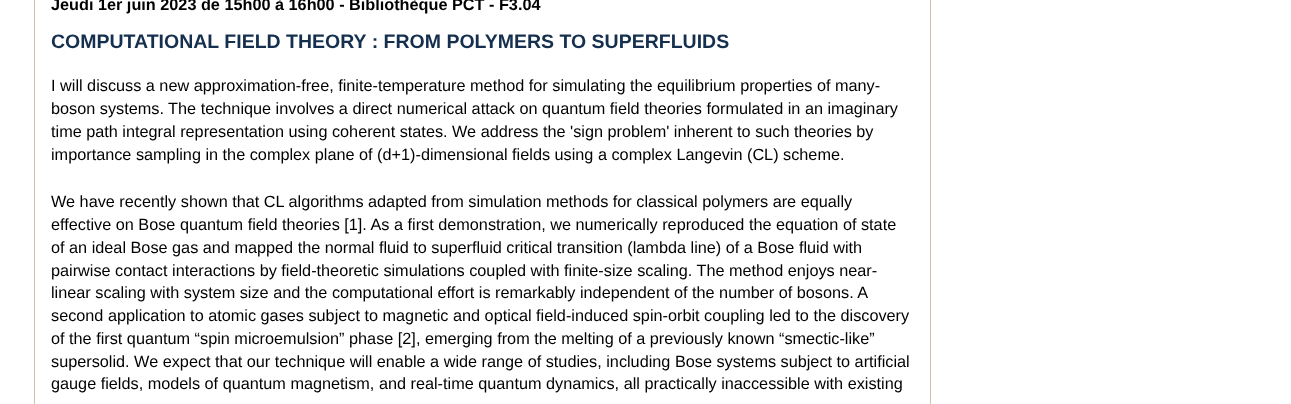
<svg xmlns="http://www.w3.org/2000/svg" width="1291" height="404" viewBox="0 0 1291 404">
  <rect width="100%" height="100%" fill="rgb(255,255,255)"/>
  <rect x="930" y="0" width="1" height="404" fill="rgb(213,192,169)"/>
  <rect x="34" y="0" width="1" height="404" fill="rgb(213,192,169)"/>
  <text x="51" y="10" font-family="Liberation Sans" font-size="16.25" font-weight="bold" fill="rgb(0,0,0)">Jeudi 1er juin 2023 de 15h00 à 16h00 - Bibliothèque PCT - F3.04</text>
  <text x="51" y="48" font-family="Liberation Sans" font-size="19.5" font-weight="bold" fill="rgb(21,47,78)">COMPUTATIONAL FIELD THEORY : FROM POLYMERS TO SUPERFLUIDS</text>
  <g font-family="Liberation Sans" font-size="16.25" fill="rgb(0,0,0)">
    <text>
      <tspan x="51" y="91">I will discuss a new approximation-free, finite-temperature method for simulating the equilibrium properties of many-</tspan>
      <tspan x="51" y="114">boson systems. The technique involves a direct numerical attack on quantum field theories formulated in an imaginary</tspan>
      <tspan x="51" y="137">time path integral representation using coherent states. We address the 'sign problem' inherent to such theories by</tspan>
      <tspan x="51" y="160">importance sampling in the complex plane of (d+1)-dimensional fields using a complex Langevin (CL) scheme.</tspan>
    </text>
    <text>
      <tspan x="51" y="207">We have recently shown that CL algorithms adapted from simulation methods for classical polymers are equally</tspan>
      <tspan x="51" y="230">effective on Bose quantum field theories [1]. As a first demonstration, we numerically reproduced the equation of state</tspan>
      <tspan x="51" y="253">of an ideal Bose gas and mapped the normal fluid to superfluid critical transition (lambda line) of a Bose fluid with</tspan>
      <tspan x="51" y="276">pairwise contact interactions by field-theoretic simulations coupled with finite-size scaling. The method enjoys near-</tspan>
      <tspan x="51" y="298">linear scaling with system size and the computational effort is remarkably independent of the number of bosons. A</tspan>
      <tspan x="51" y="321">second application to atomic gases subject to magnetic and optical field-induced spin-orbit coupling led to the discovery</tspan>
      <tspan x="51" y="344">of the first quantum “spin microemulsion” phase [2], emerging from the melting of a previously known “smectic-like”</tspan>
      <tspan x="51" y="367">supersolid. We expect that our technique will enable a wide range of studies, including Bose systems subject to artificial</tspan>
      <tspan x="51" y="389">gauge fields, models of quantum magnetism, and real-time quantum dynamics, all practically inaccessible with existing</tspan>
    </text>
  </g>
</svg>
